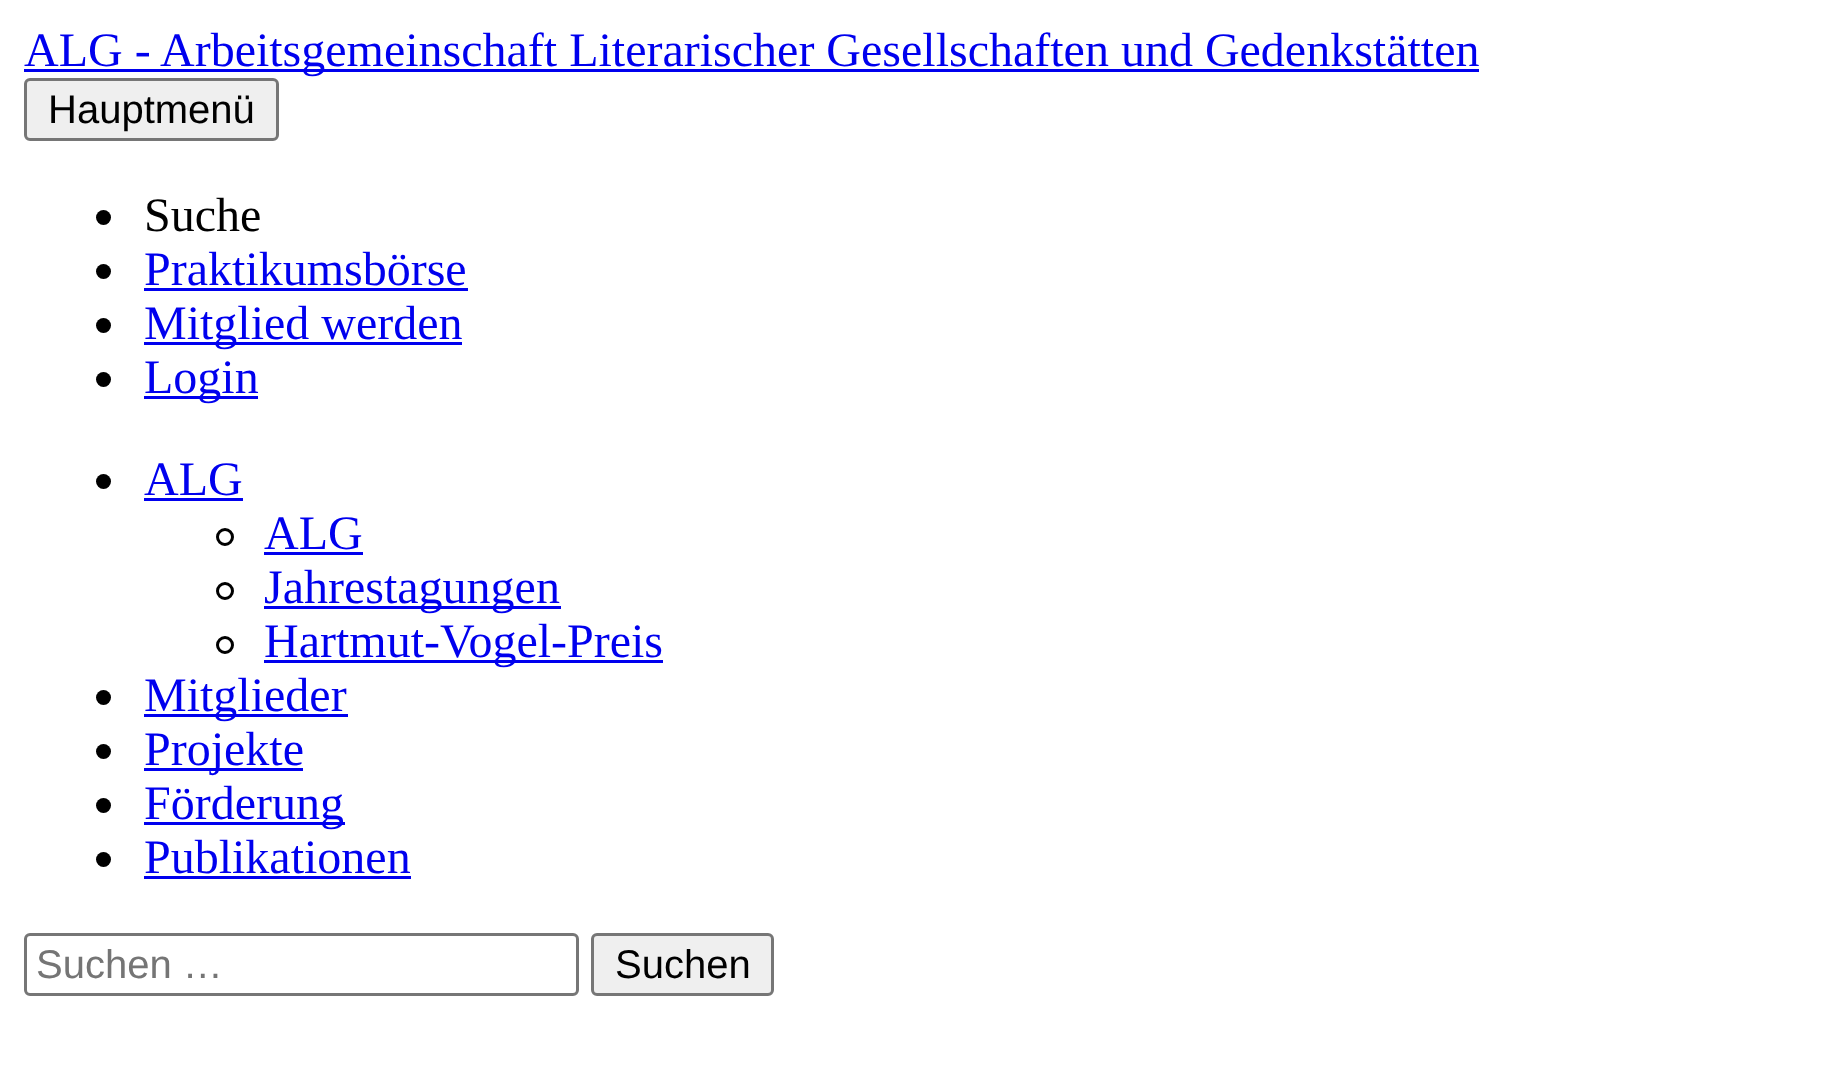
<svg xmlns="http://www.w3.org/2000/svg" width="1840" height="1072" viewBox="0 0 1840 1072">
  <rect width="100%" height="100%" fill="rgb(255,255,255)"/>
  <rect x="24" y="69" width="1455" height="3" fill="rgb(0,0,238)"/>
  <text x="24" y="66" font-family="Liberation Serif" font-size="48" fill="rgb(0,0,238)">ALG - Arbeitsgemeinschaft Literarischer Gesellschaften und Gedenkstätten</text>
  <rect x="25.5" y="79.5" width="252" height="60" rx="4.5" fill="rgb(239,239,239)" stroke="rgb(118,118,118)" stroke-width="3"/>
  <text x="48" y="123" font-family="Liberation Sans" font-size="40" fill="rgb(0,0,0)">Hauptmenü</text>
  <circle cx="103.5" cy="217.5" r="7.5" fill="rgb(0,0,0)"/>
  <text x="144" y="231" font-family="Liberation Serif" font-size="48" fill="rgb(0,0,0)">Suche</text>
  <circle cx="103.5" cy="271.5" r="7.5" fill="rgb(0,0,0)"/>
  <text x="144" y="285" font-family="Liberation Serif" font-size="48" fill="rgb(0,0,238)">Praktikumsbörse</text>
  <rect x="144" y="288" width="324" height="3" fill="rgb(0,0,238)"/>
  <circle cx="103.5" cy="325.5" r="7.5" fill="rgb(0,0,0)"/>
  <rect x="144" y="342" width="318" height="3" fill="rgb(0,0,238)"/>
  <text x="144" y="339" font-family="Liberation Serif" font-size="48" fill="rgb(0,0,238)">Mitglied werden</text>
  <circle cx="103.5" cy="379.5" r="7.5" fill="rgb(0,0,0)"/>
  <rect x="144" y="396" width="114" height="3" fill="rgb(0,0,238)"/>
  <text x="144" y="393" font-family="Liberation Serif" font-size="48" fill="rgb(0,0,238)">Login</text>
  <circle cx="103.5" cy="481.5" r="7.5" fill="rgb(0,0,0)"/>
  <text x="144" y="495" font-family="Liberation Serif" font-size="48" fill="rgb(0,0,238)">ALG</text>
  <rect x="144" y="498" width="99" height="3" fill="rgb(0,0,238)"/>
  <circle cx="225" cy="537" r="7.5" fill="none" stroke="rgb(0,0,0)" stroke-width="3"/>
  <text x="264" y="549" font-family="Liberation Serif" font-size="48" fill="rgb(0,0,238)">ALG</text>
  <rect x="264" y="552" width="99" height="3" fill="rgb(0,0,238)"/>
  <circle cx="225" cy="591" r="7.5" fill="none" stroke="rgb(0,0,0)" stroke-width="3"/>
  <rect x="264" y="606" width="297" height="3" fill="rgb(0,0,238)"/>
  <text x="264" y="603" font-family="Liberation Serif" font-size="48" fill="rgb(0,0,238)">Jahrestagungen</text>
  <circle cx="225" cy="645" r="7.5" fill="none" stroke="rgb(0,0,0)" stroke-width="3"/>
  <rect x="264" y="660" width="399" height="3" fill="rgb(0,0,238)"/>
  <text x="264" y="657" font-family="Liberation Serif" font-size="48" fill="rgb(0,0,238)">Hartmut-Vogel-Preis</text>
  <circle cx="103.5" cy="697.5" r="7.5" fill="rgb(0,0,0)"/>
  <rect x="144" y="714" width="204" height="3" fill="rgb(0,0,238)"/>
  <text x="144" y="711" font-family="Liberation Serif" font-size="48" fill="rgb(0,0,238)">Mitglieder</text>
  <circle cx="103.5" cy="751.5" r="7.5" fill="rgb(0,0,0)"/>
  <rect x="144" y="768" width="159" height="3" fill="rgb(0,0,238)"/>
  <text x="144" y="765" font-family="Liberation Serif" font-size="48" fill="rgb(0,0,238)">Projekte</text>
  <circle cx="103.5" cy="805.5" r="7.5" fill="rgb(0,0,0)"/>
  <rect x="144" y="822" width="201" height="3" fill="rgb(0,0,238)"/>
  <text x="144" y="819" font-family="Liberation Serif" font-size="48" fill="rgb(0,0,238)">Förderung</text>
  <circle cx="103.5" cy="859.5" r="7.5" fill="rgb(0,0,0)"/>
  <text x="144" y="873" font-family="Liberation Serif" font-size="48" fill="rgb(0,0,238)">Publikationen</text>
  <rect x="144" y="876" width="267" height="3" fill="rgb(0,0,238)"/>
  <rect x="25.5" y="934.5" width="552" height="60" rx="4.5" fill="none" stroke="rgb(118,118,118)" stroke-width="3"/>
  <text x="36" y="978" font-family="Liberation Sans" font-size="40" fill="rgb(117,117,117)">Suchen …</text>
  <rect x="592.5" y="934.5" width="180" height="60" rx="4.5" fill="rgb(239,239,239)" stroke="rgb(118,118,118)" stroke-width="3"/>
  <text x="615" y="978" font-family="Liberation Sans" font-size="40" fill="rgb(0,0,0)">Suchen</text>
</svg>
